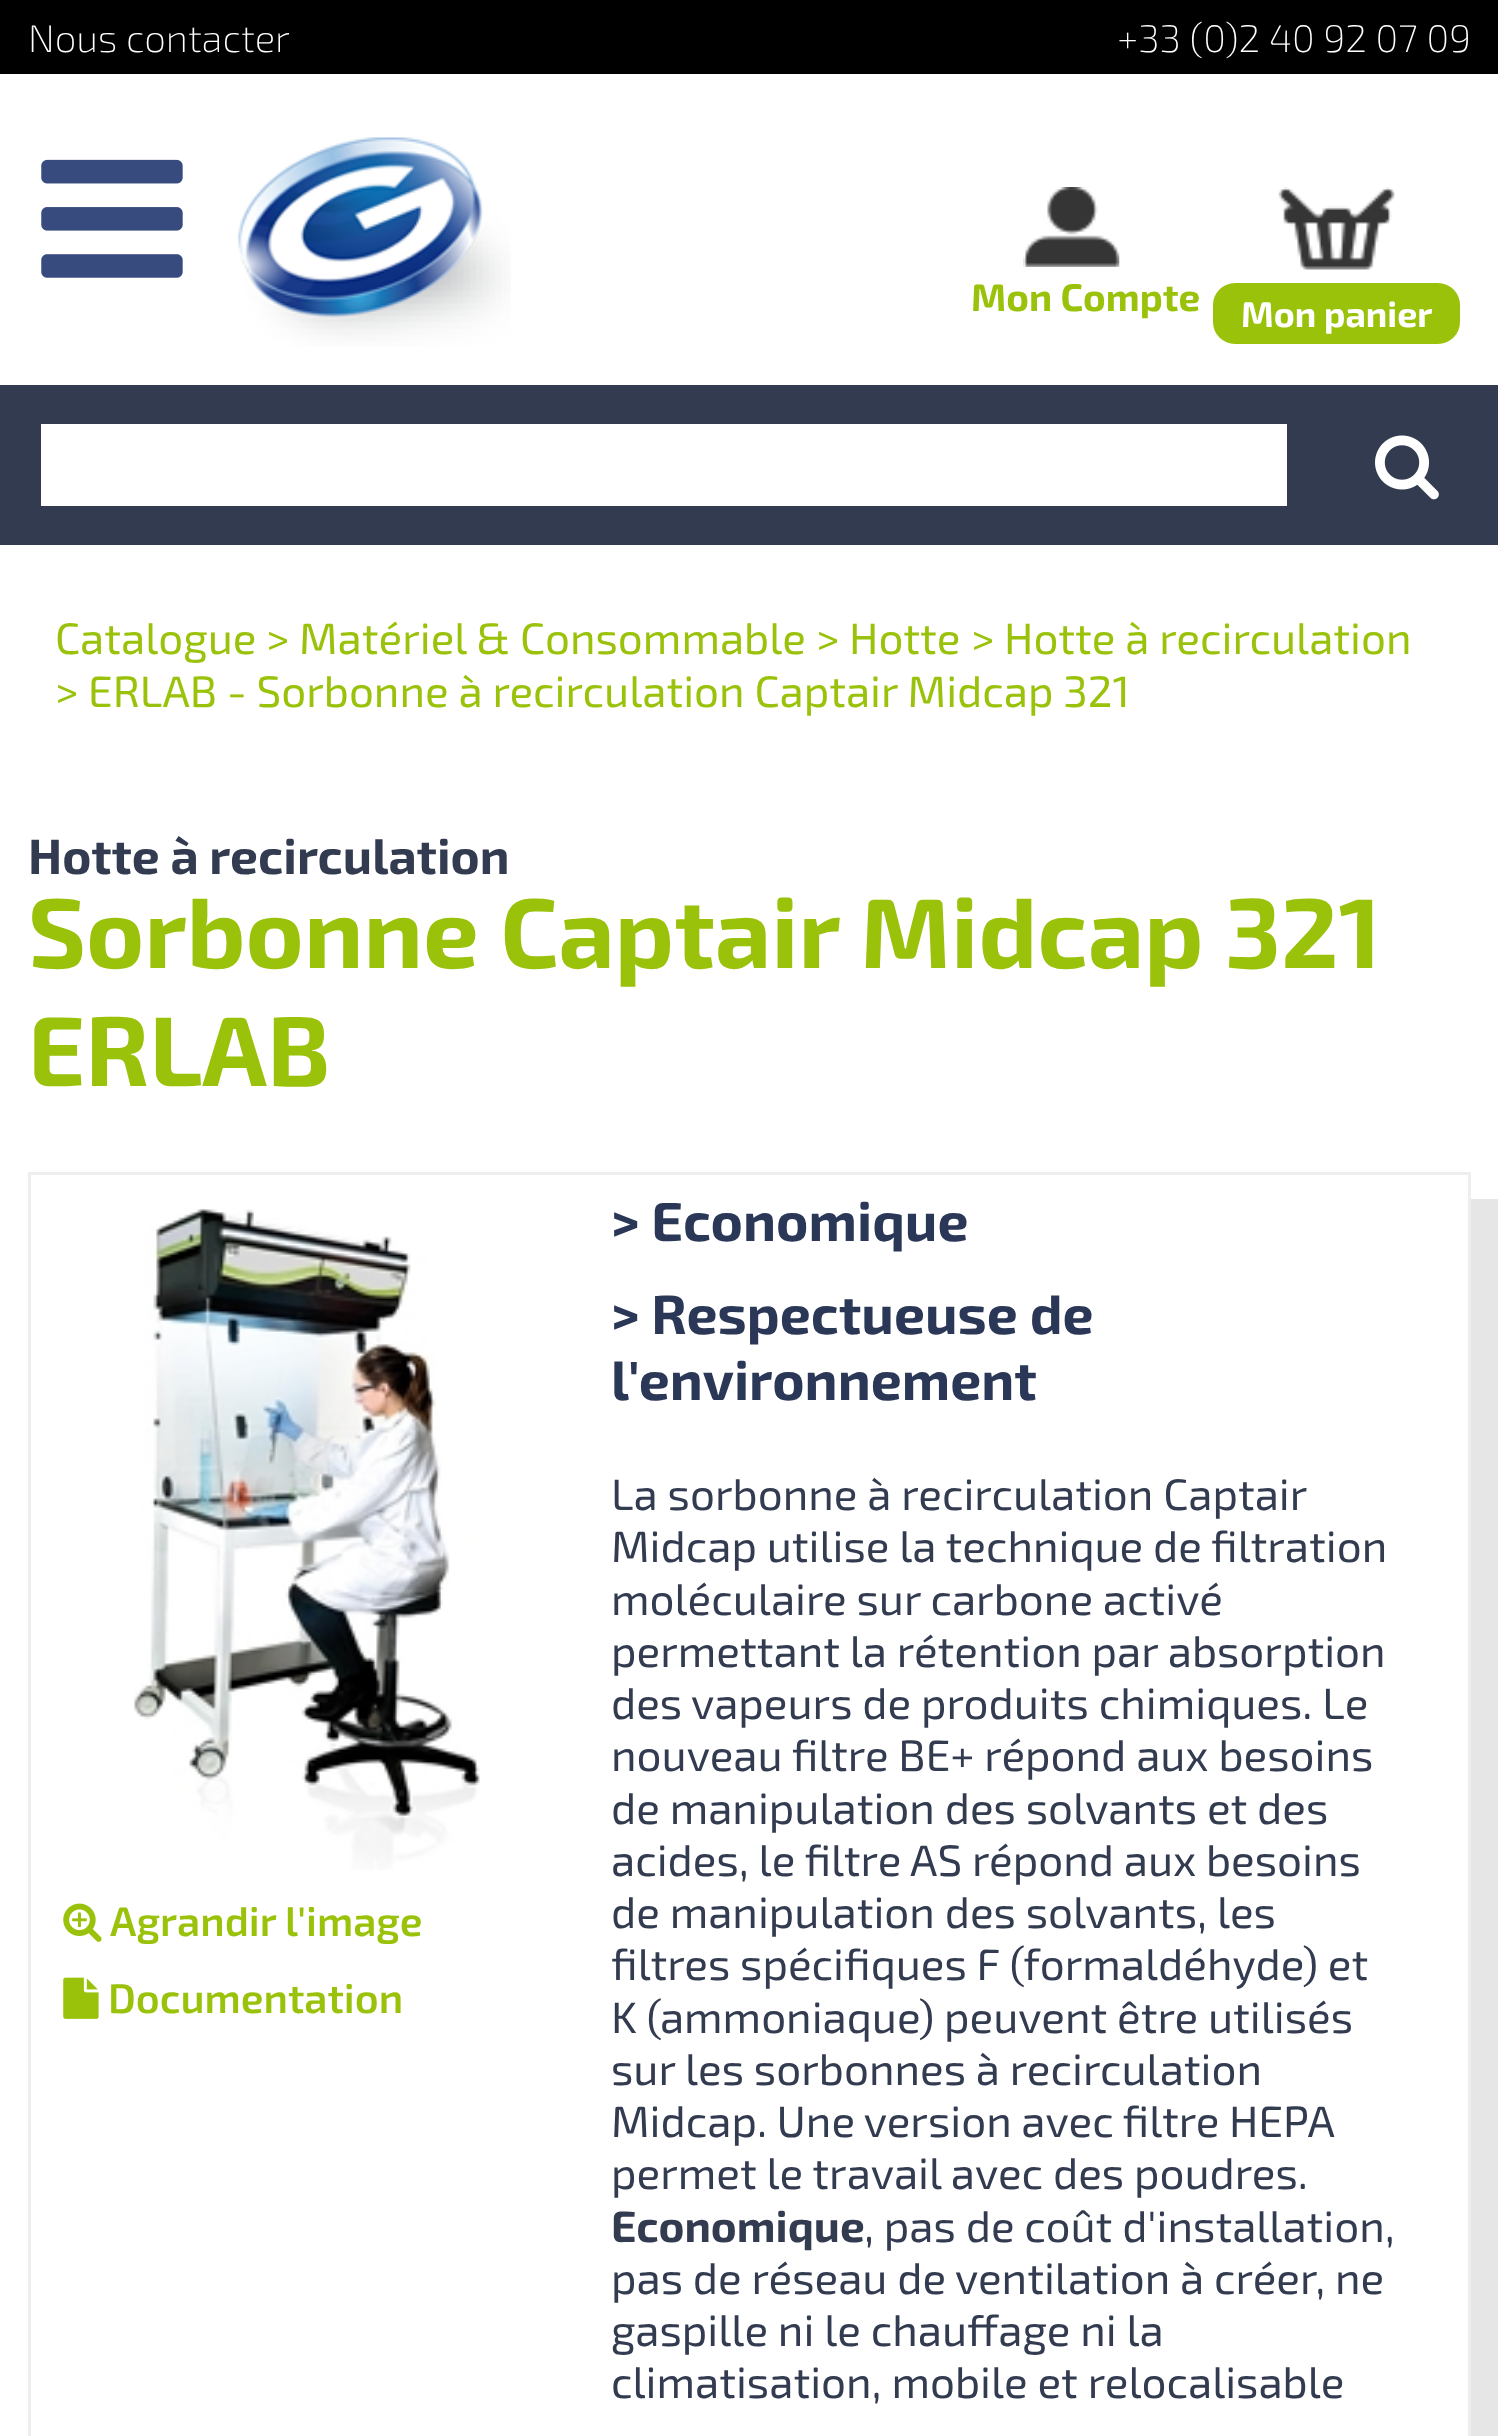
<svg xmlns="http://www.w3.org/2000/svg" width="1498" height="2436" viewBox="0 0 1498 2436">
  <rect width="100%" height="100%" fill="rgb(255,255,255)"/>
  <rect x="0" y="0" width="1498" height="74" fill="rgb(0,0,0)"/>
  <g font-family="'Exo 2'" font-size="38.5" font-weight="200" fill="rgb(255,255,255)">
    <text x="28" y="52">Nous contacter</text>
    <text x="1117" y="52">+33 (0)2 40 92 07 09</text>
  </g>
  <image x="1023" y="187" width="97" height="80" href="pic1.png"/>
  <text x="971" y="311" font-family="'Exo 2'" font-size="38.5" font-weight="bold" fill="rgb(154,194,10)">Mon Compte</text>
  <image x="1278" y="187" width="117" height="83" href="pic2.png"/>
  <rect x="1213" y="283" width="247" height="61" rx="22" fill="rgb(154,194,10)"/>
  <text x="1241" y="327" font-family="'Exo 2'" font-size="35.75" font-weight="bold" fill="rgb(255,255,255)">Mon panier</text>
  <image x="41" y="159" width="142" height="119" href="pic3.png"/>
  <image x="237" y="137" width="274" height="210" href="pic4.png"/>
  <rect x="0" y="385" width="1498" height="160" fill="rgb(51,59,80)"/>
  <rect x="41" y="424" width="1246" height="82" fill="rgb(255,255,255)"/>
  <image x="1375" y="435" width="64" height="65" href="pic5.png"/>
  <g font-family="'Exo 2'" font-size="44" fill="rgb(154,194,10)">
    <text x="55" y="654">Catalogue</text>
    <text x="266" y="654">&gt;</text>
    <text x="299" y="654">Matériel &amp; Consommable</text>
    <text x="816" y="654">&gt;</text>
    <text x="849" y="654">Hotte</text>
    <text x="971" y="654">&gt;</text>
    <text x="1004" y="654">Hotte à recirculation</text>
    <text x="55" y="707">&gt;</text>
    <text x="88" y="707">ERLAB - Sorbonne à recirculation Captair Midcap 321</text>
  </g>
  <text x="28" y="874" font-family="'Exo 2'" font-size="49.5" font-weight="bold" fill="rgb(51,59,80)">Hotte à recirculation</text>
  <g font-family="'Exo 2'" font-size="99" font-weight="bold" fill="rgb(154,194,10)">
    <text>
      <tspan x="28" y="968">Sorbonne Captair Midcap 321</tspan>
      <tspan x="28" y="1086">ERLAB</tspan>
    </text>
  </g>
  <path d="M55 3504V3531H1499V1199H1471V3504Z" fill="rgb(230,230,230)"/>
  <rect x="29.5" y="1173.5" width="1440" height="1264" fill="none" stroke="rgb(238,238,238)" stroke-width="3"/>
  <image x="134" y="1208" width="346" height="662" href="pic6.png"/>
  <image x="63" y="1903" width="39" height="39" href="pic7.png"/>
  <text x="110" y="1936" font-family="'Exo 2'" font-size="41.25" font-weight="600" fill="rgb(154,194,10)">Agrandir l'image</text>
  <image x="63" y="1977" width="36" height="42" href="pic8.png"/>
  <text x="108" y="2013" font-family="'Exo 2'" font-size="41.25" font-weight="600" fill="rgb(154,194,10)">Documentation</text>
  <g font-family="'Exo 2'" font-size="55" font-weight="bold" fill="rgb(42,55,86)">
    <text>
      <tspan x="611" y="1241">&gt; Economique</tspan>
      <tspan x="611" y="1334">&gt; Respectueuse de</tspan>
      <tspan x="611" y="1400">l'environnement</tspan>
    </text>
  </g>
  <g font-family="'Exo 2'" font-size="44" fill="rgb(51,59,80)">
    <text>
      <tspan x="611" y="1510">La sorbonne à recirculation Captair</tspan>
      <tspan x="611" y="1562">Midcap utilise la technique de filtration</tspan>
      <tspan x="611" y="1615">moléculaire sur carbone activé</tspan>
      <tspan x="611" y="1667">permettant la rétention par absorption</tspan>
      <tspan x="611" y="1719">des vapeurs de produits chimiques. Le</tspan>
      <tspan x="611" y="1771">nouveau filtre BE+ répond aux besoins</tspan>
      <tspan x="611" y="1824">de manipulation des solvants et des</tspan>
      <tspan x="611" y="1876">acides, le filtre AS répond aux besoins</tspan>
      <tspan x="611" y="1928">de manipulation des solvants, les</tspan>
      <tspan x="611" y="1980">filtres spécifiques F (formaldéhyde) et</tspan>
      <tspan x="611" y="2033">K (ammoniaque) peuvent être utilisés</tspan>
      <tspan x="611" y="2085">sur les sorbonnes à recirculation</tspan>
      <tspan x="611" y="2137" word-spacing="-0.25">Midcap. Une version avec filtre HEPA</tspan>
      <tspan x="611" y="2189">permet le travail avec des poudres.</tspan>
    </text>
  </g>
  <text x="611" y="2242" font-family="'Exo 2'" font-size="44" font-weight="bold" fill="rgb(51,59,80)">Economique</text>
  <g font-family="'Exo 2'" font-size="44" fill="rgb(51,59,80)">
    <text x="864" y="2242">, pas de coût d'installation,</text>
    <text>
      <tspan x="611" y="2294">pas de réseau de ventilation à créer, ne</tspan>
      <tspan x="611" y="2346">gaspille ni le chauffage ni la</tspan>
      <tspan x="611" y="2398">climatisation, mobile et relocalisable</tspan>
    </text>
  </g>
</svg>
